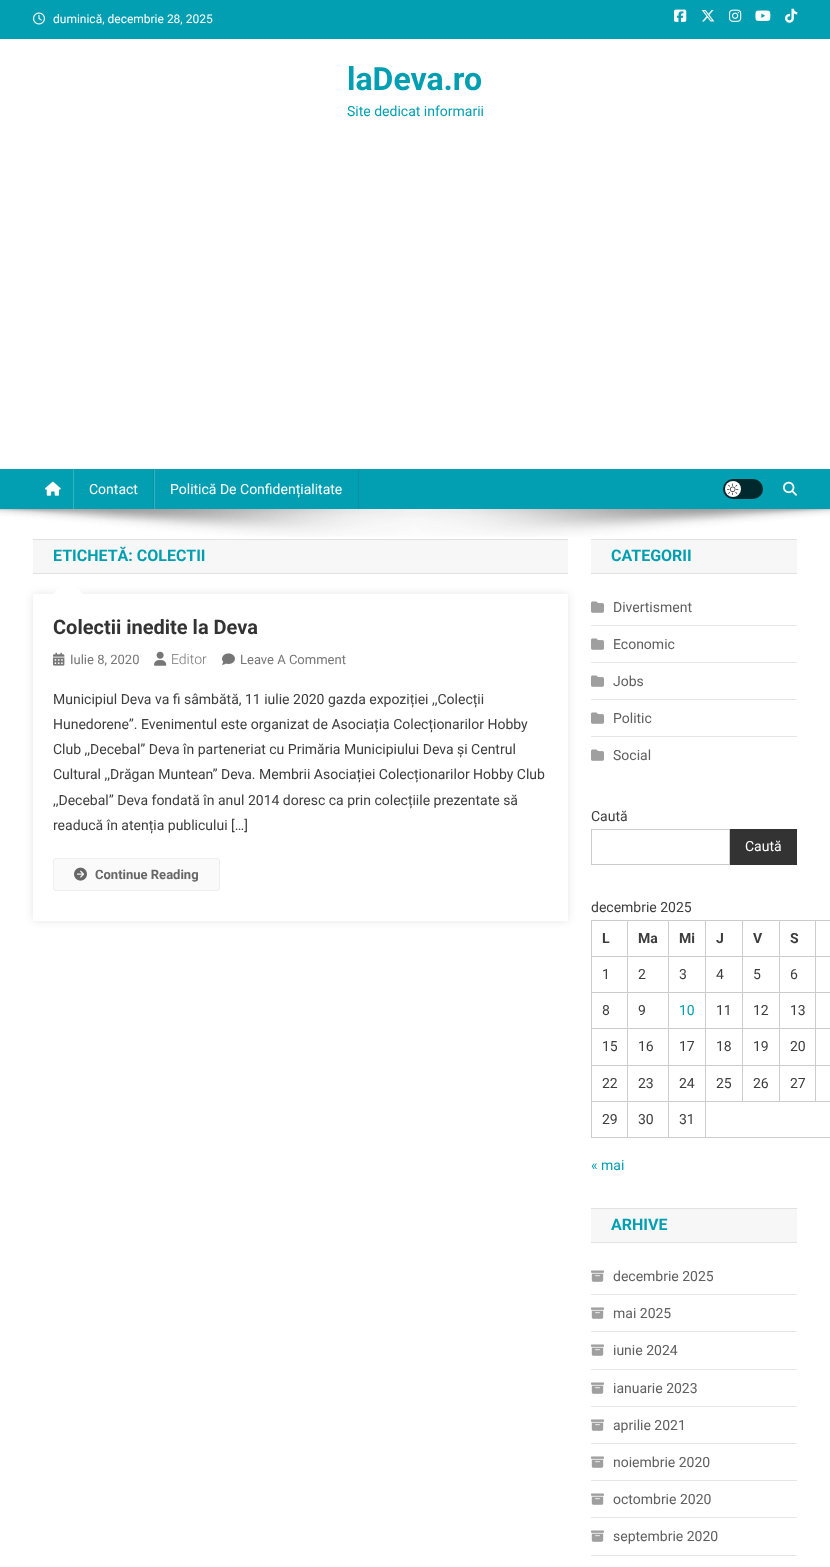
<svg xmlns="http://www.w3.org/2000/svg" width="830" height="1567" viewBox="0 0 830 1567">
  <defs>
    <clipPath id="clip1"><path d="M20 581H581V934H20ZM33 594H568V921H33Z" clip-rule="evenodd"/></clipPath>
  </defs>
  <rect width="100%" height="100%" fill="rgb(255,255,255)"/>
  <rect x="0" y="0" width="830" height="39" fill="rgb(2,159,178)"/>
  <image x="33" y="12" width="12" height="13" href="pic1.png"/>
  <text x="53" y="23" font-family="Roboto" font-size="12" fill="rgb(255,255,255)">duminică, decembrie 28, 2025</text>
  <image x="674" y="9" width="13" height="13" href="pic2.png"/>
  <image x="701" y="10" width="14" height="12" href="pic3.png"/>
  <image x="729" y="9" width="13" height="13" href="pic4.png"/>
  <image x="755" y="10" width="16" height="11" href="pic5.png"/>
  <image x="785" y="8" width="13" height="15" href="pic6.png"/>
  <text x="347" y="90" font-family="Roboto" font-size="32" font-weight="bold" fill="rgb(2,159,178)">laDeva.ro</text>
  <text x="347" y="116" font-family="Roboto" font-size="14" fill="rgb(2,159,178)">Site dedicat informarii</text>
  <rect x="0" y="469" width="830" height="40" fill="rgb(2,159,178)"/>
  <image x="45" y="481" width="16" height="15" href="pic7.png"/>
  <rect x="153" y="469" width="1" height="40" fill="rgb(2,146,164)"/>
  <rect x="73" y="469" width="1" height="40" fill="rgb(53,178,193)"/>
  <text x="89" y="494" font-family="Roboto" font-size="14" fill="rgb(255,255,255)">Contact</text>
  <rect x="358" y="469" width="1" height="40" fill="rgb(2,146,164)"/>
  <rect x="154" y="469" width="1" height="40" fill="rgb(53,178,193)"/>
  <text x="170" y="494" font-family="Roboto" font-size="14" fill="rgb(255,255,255)">Politică De Confidențialitate</text>
  <rect x="723" y="479" width="40" height="20" rx="10" fill="rgb(1,40,45)"/>
  <circle cx="733" cy="489" r="8" fill="rgb(255,255,255)"/>
  <image x="727" y="483" width="12" height="12" href="pic8.png"/>
  <image x="783" y="481" width="14" height="15" href="pic9.png"/>
  <image x="0" y="509" width="830" height="28" href="pic10.png"/>
  <rect x="33" y="540" width="535" height="33" fill="rgb(247,247,247)"/>
  <rect x="33" y="539" width="535" height="1" fill="rgb(225,225,225)"/>
  <rect x="33" y="573" width="535" height="1" fill="rgb(225,225,225)"/>
  <text x="53" y="561" font-family="Roboto" font-size="16" font-weight="bold" fill="rgb(2,159,178)">ETICHETĂ: COLECTII</text>
  <g clip-path="url(#clip1)">
    <rect x="33" y="594" width="535" height="327" fill="rgba(0,0,0,0.1)" filter="blur(4px)"/>
  </g>
  <path d="M83 594H53L68 579Z" fill="rgb(255,255,255)"/>
  <text x="53" y="634" font-family="Roboto" font-size="20" font-weight="bold" fill="rgb(51,51,51)">Colectii inedite la Deva</text>
  <image x="53" y="652" width="12" height="14" href="pic11.png"/>
  <text x="70" y="664" font-family="Roboto" font-size="13" fill="rgb(118,118,118)">Iulie 8, 2020</text>
  <image x="154" y="651" width="13" height="15" href="pic12.png"/>
  <text x="171" y="664" font-family="Roboto" font-size="14" font-weight="300" fill="rgb(118,118,118)">Editor</text>
  <image x="222" y="653" width="13" height="12" href="pic13.png"/>
  <text x="240" y="664" font-family="Roboto" font-size="13" fill="rgb(118,118,118)">Leave A Comment</text>
  <g font-family="Roboto" font-size="14" fill="rgb(61,61,61)">
    <text>
      <tspan x="53" y="704">Municipiul Deva va fi sâmbătă, 11 iulie 2020 gazda expoziției ,,Colecții</tspan>
      <tspan x="53" y="729">Hunedorene”. Evenimentul este organizat de Asociația Colecționarilor Hobby</tspan>
      <tspan x="53" y="754">Club ,,Decebal” Deva în parteneriat cu Primăria Municipiului Deva și Centrul</tspan>
      <tspan x="53" y="779">Cultural ,,Drăgan Muntean” Deva. Membrii Asociației Colecționarilor Hobby Club</tspan>
      <tspan x="53" y="805">,,Decebal” Deva fondată în anul 2014 doresc ca prin colecțiile prezentate să</tspan>
      <tspan x="53" y="830">readucă în atenția publicului […]</tspan>
    </text>
  </g>
  <rect x="53.5" y="858.5" width="166" height="32" rx="2.5" fill="rgb(250,250,250)" stroke="rgb(238,238,238)"/>
  <image x="74" y="867" width="13" height="14" href="pic14.png"/>
  <text x="95" y="879" font-family="Roboto" font-size="13" font-weight="bold" fill="rgb(102,102,102)">Continue Reading</text>
  <rect x="591" y="540" width="206" height="33" fill="rgb(247,247,247)"/>
  <rect x="591" y="539" width="206" height="1" fill="rgb(225,225,225)"/>
  <rect x="591" y="573" width="206" height="1" fill="rgb(225,225,225)"/>
  <text x="611" y="561" font-family="Roboto" font-size="16" font-weight="bold" fill="rgb(2,159,178)">CATEGORII</text>
  <rect x="591" y="625" width="206" height="1" fill="rgb(230,230,230)"/>
  <image x="591" y="601" width="13" height="12" href="pic15.png"/>
  <text x="613" y="612" font-family="Roboto" font-size="14" fill="rgb(95,95,95)">Divertisment</text>
  <rect x="591" y="662" width="206" height="1" fill="rgb(230,230,230)"/>
  <image x="591" y="638" width="13" height="12" href="pic15.png"/>
  <text x="613" y="649" font-family="Roboto" font-size="14" fill="rgb(95,95,95)">Economic</text>
  <rect x="591" y="699" width="206" height="1" fill="rgb(230,230,230)"/>
  <image x="591" y="675" width="13" height="12" href="pic15.png"/>
  <text x="613" y="686" font-family="Roboto" font-size="14" fill="rgb(95,95,95)">Jobs</text>
  <rect x="591" y="736" width="206" height="1" fill="rgb(230,230,230)"/>
  <image x="591" y="712" width="13" height="12" href="pic15.png"/>
  <text x="613" y="723" font-family="Roboto" font-size="14" fill="rgb(95,95,95)">Politic</text>
  <image x="591" y="749" width="13" height="12" href="pic15.png"/>
  <text x="613" y="760" font-family="Roboto" font-size="14" fill="rgb(95,95,95)">Social</text>
  <text x="591" y="821" font-family="Roboto" font-size="14" fill="rgb(61,61,61)">Caută</text>
  <rect x="591.5" y="829.5" width="138" height="35" fill="none" stroke="rgb(204,204,204)"/>
  <rect x="730" y="829" width="67" height="36" fill="rgb(51,51,51)"/>
  <text x="745" y="851" font-family="Roboto" font-size="14" fill="rgb(255,255,255)">Caută</text>
  <text x="591" y="912" font-family="Roboto" font-size="14" fill="rgb(61,61,61)">decembrie 2025</text>
  <rect x="815" y="920" width="15" height="1" fill="rgb(204,204,204)"/>
  <rect x="815" y="956" width="15" height="1" fill="rgb(204,204,204)"/>
  <rect x="815" y="992" width="15" height="1" fill="rgb(204,204,204)"/>
  <rect x="815" y="1028" width="15" height="1" fill="rgb(204,204,204)"/>
  <rect x="815" y="1065" width="15" height="1" fill="rgb(204,204,204)"/>
  <rect x="705" y="1101" width="125" height="1" fill="rgb(204,204,204)"/>
  <rect x="815" y="1065" width="1" height="37" fill="rgb(204,204,204)"/>
  <rect x="779" y="1065" width="37" height="1" fill="rgb(204,204,204)"/>
  <rect x="815" y="1028" width="1" height="38" fill="rgb(204,204,204)"/>
  <rect x="779" y="1028" width="37" height="1" fill="rgb(204,204,204)"/>
  <rect x="815" y="992" width="1" height="37" fill="rgb(204,204,204)"/>
  <rect x="779" y="992" width="37" height="1" fill="rgb(204,204,204)"/>
  <rect x="815" y="956" width="1" height="37" fill="rgb(204,204,204)"/>
  <rect x="779" y="956" width="37" height="1" fill="rgb(204,204,204)"/>
  <rect x="815" y="920" width="1" height="37" fill="rgb(204,204,204)"/>
  <rect x="779" y="920" width="37" height="1" fill="rgb(204,204,204)"/>
  <rect x="779" y="1065" width="1" height="37" fill="rgb(204,204,204)"/>
  <rect x="742" y="1065" width="38" height="1" fill="rgb(204,204,204)"/>
  <rect x="779" y="1028" width="1" height="38" fill="rgb(204,204,204)"/>
  <rect x="742" y="1028" width="38" height="1" fill="rgb(204,204,204)"/>
  <rect x="779" y="992" width="1" height="37" fill="rgb(204,204,204)"/>
  <rect x="742" y="992" width="38" height="1" fill="rgb(204,204,204)"/>
  <rect x="779" y="956" width="1" height="37" fill="rgb(204,204,204)"/>
  <rect x="742" y="956" width="38" height="1" fill="rgb(204,204,204)"/>
  <rect x="779" y="920" width="1" height="37" fill="rgb(204,204,204)"/>
  <rect x="742" y="920" width="38" height="1" fill="rgb(204,204,204)"/>
  <rect x="742" y="1065" width="1" height="37" fill="rgb(204,204,204)"/>
  <rect x="705" y="1065" width="38" height="1" fill="rgb(204,204,204)"/>
  <rect x="742" y="1028" width="1" height="38" fill="rgb(204,204,204)"/>
  <rect x="705" y="1028" width="38" height="1" fill="rgb(204,204,204)"/>
  <rect x="742" y="992" width="1" height="37" fill="rgb(204,204,204)"/>
  <rect x="705" y="992" width="38" height="1" fill="rgb(204,204,204)"/>
  <rect x="742" y="956" width="1" height="37" fill="rgb(204,204,204)"/>
  <rect x="705" y="956" width="38" height="1" fill="rgb(204,204,204)"/>
  <rect x="742" y="920" width="1" height="37" fill="rgb(204,204,204)"/>
  <rect x="705" y="920" width="38" height="1" fill="rgb(204,204,204)"/>
  <rect x="705" y="1137" width="125" height="1" fill="rgb(204,204,204)"/>
  <rect x="705" y="1101" width="1" height="37" fill="rgb(204,204,204)"/>
  <rect x="668" y="1101" width="38" height="1" fill="rgb(204,204,204)"/>
  <rect x="705" y="1065" width="1" height="37" fill="rgb(204,204,204)"/>
  <rect x="668" y="1065" width="38" height="1" fill="rgb(204,204,204)"/>
  <rect x="705" y="1028" width="1" height="38" fill="rgb(204,204,204)"/>
  <rect x="668" y="1028" width="38" height="1" fill="rgb(204,204,204)"/>
  <rect x="705" y="992" width="1" height="37" fill="rgb(204,204,204)"/>
  <rect x="668" y="992" width="38" height="1" fill="rgb(204,204,204)"/>
  <rect x="705" y="956" width="1" height="37" fill="rgb(204,204,204)"/>
  <rect x="668" y="956" width="38" height="1" fill="rgb(204,204,204)"/>
  <rect x="705" y="920" width="1" height="37" fill="rgb(204,204,204)"/>
  <rect x="668" y="920" width="38" height="1" fill="rgb(204,204,204)"/>
  <rect x="668" y="1137" width="38" height="1" fill="rgb(204,204,204)"/>
  <rect x="668" y="1101" width="1" height="37" fill="rgb(204,204,204)"/>
  <rect x="627" y="1101" width="42" height="1" fill="rgb(204,204,204)"/>
  <rect x="668" y="1065" width="1" height="37" fill="rgb(204,204,204)"/>
  <rect x="627" y="1065" width="42" height="1" fill="rgb(204,204,204)"/>
  <rect x="668" y="1028" width="1" height="38" fill="rgb(204,204,204)"/>
  <rect x="627" y="1028" width="42" height="1" fill="rgb(204,204,204)"/>
  <rect x="668" y="992" width="1" height="37" fill="rgb(204,204,204)"/>
  <rect x="627" y="992" width="42" height="1" fill="rgb(204,204,204)"/>
  <rect x="668" y="956" width="1" height="37" fill="rgb(204,204,204)"/>
  <rect x="627" y="956" width="42" height="1" fill="rgb(204,204,204)"/>
  <rect x="668" y="920" width="1" height="37" fill="rgb(204,204,204)"/>
  <rect x="627" y="920" width="42" height="1" fill="rgb(204,204,204)"/>
  <rect x="627" y="1137" width="42" height="1" fill="rgb(204,204,204)"/>
  <rect x="627" y="1101" width="1" height="37" fill="rgb(204,204,204)"/>
  <rect x="591" y="1101" width="37" height="1" fill="rgb(204,204,204)"/>
  <rect x="627" y="1065" width="1" height="37" fill="rgb(204,204,204)"/>
  <rect x="591" y="1065" width="37" height="1" fill="rgb(204,204,204)"/>
  <rect x="627" y="1028" width="1" height="38" fill="rgb(204,204,204)"/>
  <rect x="591" y="1028" width="37" height="1" fill="rgb(204,204,204)"/>
  <rect x="627" y="992" width="1" height="37" fill="rgb(204,204,204)"/>
  <rect x="591" y="992" width="37" height="1" fill="rgb(204,204,204)"/>
  <rect x="627" y="956" width="1" height="37" fill="rgb(204,204,204)"/>
  <rect x="591" y="956" width="37" height="1" fill="rgb(204,204,204)"/>
  <rect x="627" y="920" width="1" height="37" fill="rgb(204,204,204)"/>
  <rect x="591" y="920" width="37" height="1" fill="rgb(204,204,204)"/>
  <rect x="591" y="1137" width="37" height="1" fill="rgb(204,204,204)"/>
  <rect x="591" y="1101" width="1" height="37" fill="rgb(204,204,204)"/>
  <rect x="591" y="1065" width="1" height="37" fill="rgb(204,204,204)"/>
  <rect x="591" y="1028" width="1" height="38" fill="rgb(204,204,204)"/>
  <rect x="591" y="992" width="1" height="37" fill="rgb(204,204,204)"/>
  <rect x="591" y="956" width="1" height="37" fill="rgb(204,204,204)"/>
  <rect x="591" y="920" width="1" height="37" fill="rgb(204,204,204)"/>
  <g font-family="Roboto" font-size="14" font-weight="bold" fill="rgb(61,61,61)">
    <text x="602" y="943">L</text>
    <text x="638" y="943">Ma</text>
    <text x="679" y="943">Mi</text>
    <text x="716" y="943">J</text>
    <text x="753" y="943">V</text>
    <text x="790" y="943">S</text>
  </g>
  <g font-family="Roboto" font-size="14" fill="rgb(61,61,61)">
    <text x="602" y="979">1</text>
    <text x="638" y="979">2</text>
    <text x="679" y="979">3</text>
    <text x="716" y="979">4</text>
    <text x="753" y="979">5</text>
    <text x="790" y="979">6</text>
    <text x="602" y="1015">8</text>
    <text x="638" y="1015">9</text>
  </g>
  <text x="679" y="1015" font-family="Roboto" font-size="14" fill="rgb(2,159,178)">10</text>
  <g font-family="Roboto" font-size="14" fill="rgb(61,61,61)">
    <text x="716" y="1015">11</text>
    <text x="753" y="1015">12</text>
    <text x="790" y="1015">13</text>
    <text x="602" y="1051">15</text>
    <text x="638" y="1051">16</text>
    <text x="679" y="1051">17</text>
    <text x="716" y="1051">18</text>
    <text x="753" y="1051">19</text>
    <text x="790" y="1051">20</text>
    <text x="602" y="1088">22</text>
    <text x="638" y="1088">23</text>
    <text x="679" y="1088">24</text>
    <text x="716" y="1088">25</text>
    <text x="753" y="1088">26</text>
    <text x="790" y="1088">27</text>
    <text x="602" y="1124">29</text>
    <text x="638" y="1124">30</text>
    <text x="679" y="1124">31</text>
  </g>
  <text x="591" y="1170" font-family="Roboto" font-size="14" fill="rgb(2,159,178)">« mai</text>
  <rect x="591" y="1209" width="206" height="33" fill="rgb(247,247,247)"/>
  <rect x="591" y="1208" width="206" height="1" fill="rgb(225,225,225)"/>
  <rect x="591" y="1242" width="206" height="1" fill="rgb(225,225,225)"/>
  <text x="611" y="1230" font-family="Roboto" font-size="16" font-weight="bold" fill="rgb(2,159,178)">ARHIVE</text>
  <rect x="591" y="1294" width="206" height="1" fill="rgb(230,230,230)"/>
  <image x="591" y="1270" width="13" height="12" href="pic16.png"/>
  <text x="613" y="1281" font-family="Roboto" font-size="14" fill="rgb(95,95,95)">decembrie 2025</text>
  <rect x="591" y="1331" width="206" height="1" fill="rgb(230,230,230)"/>
  <image x="591" y="1307" width="13" height="12" href="pic16.png"/>
  <text x="613" y="1318" font-family="Roboto" font-size="14" fill="rgb(95,95,95)">mai 2025</text>
  <rect x="591" y="1369" width="206" height="1" fill="rgb(230,230,230)"/>
  <image x="591" y="1344" width="13" height="12" href="pic16.png"/>
  <text x="613" y="1355" font-family="Roboto" font-size="14" fill="rgb(95,95,95)">iunie 2024</text>
  <rect x="591" y="1406" width="206" height="1" fill="rgb(230,230,230)"/>
  <image x="591" y="1382" width="13" height="12" href="pic16.png"/>
  <text x="613" y="1393" font-family="Roboto" font-size="14" fill="rgb(95,95,95)">ianuarie 2023</text>
  <rect x="591" y="1443" width="206" height="1" fill="rgb(230,230,230)"/>
  <image x="591" y="1419" width="13" height="12" href="pic16.png"/>
  <text x="613" y="1430" font-family="Roboto" font-size="14" fill="rgb(95,95,95)">aprilie 2021</text>
  <rect x="591" y="1480" width="206" height="1" fill="rgb(230,230,230)"/>
  <image x="591" y="1456" width="13" height="12" href="pic16.png"/>
  <text x="613" y="1467" font-family="Roboto" font-size="14" fill="rgb(95,95,95)">noiembrie 2020</text>
  <rect x="591" y="1517" width="206" height="1" fill="rgb(230,230,230)"/>
  <image x="591" y="1493" width="13" height="12" href="pic16.png"/>
  <text x="613" y="1504" font-family="Roboto" font-size="14" fill="rgb(95,95,95)">octombrie 2020</text>
  <rect x="591" y="1555" width="206" height="1" fill="rgb(230,230,230)"/>
  <image x="591" y="1530" width="13" height="12" href="pic16.png"/>
  <text x="613" y="1541" font-family="Roboto" font-size="14" fill="rgb(95,95,95)">septembrie 2020</text>
</svg>
